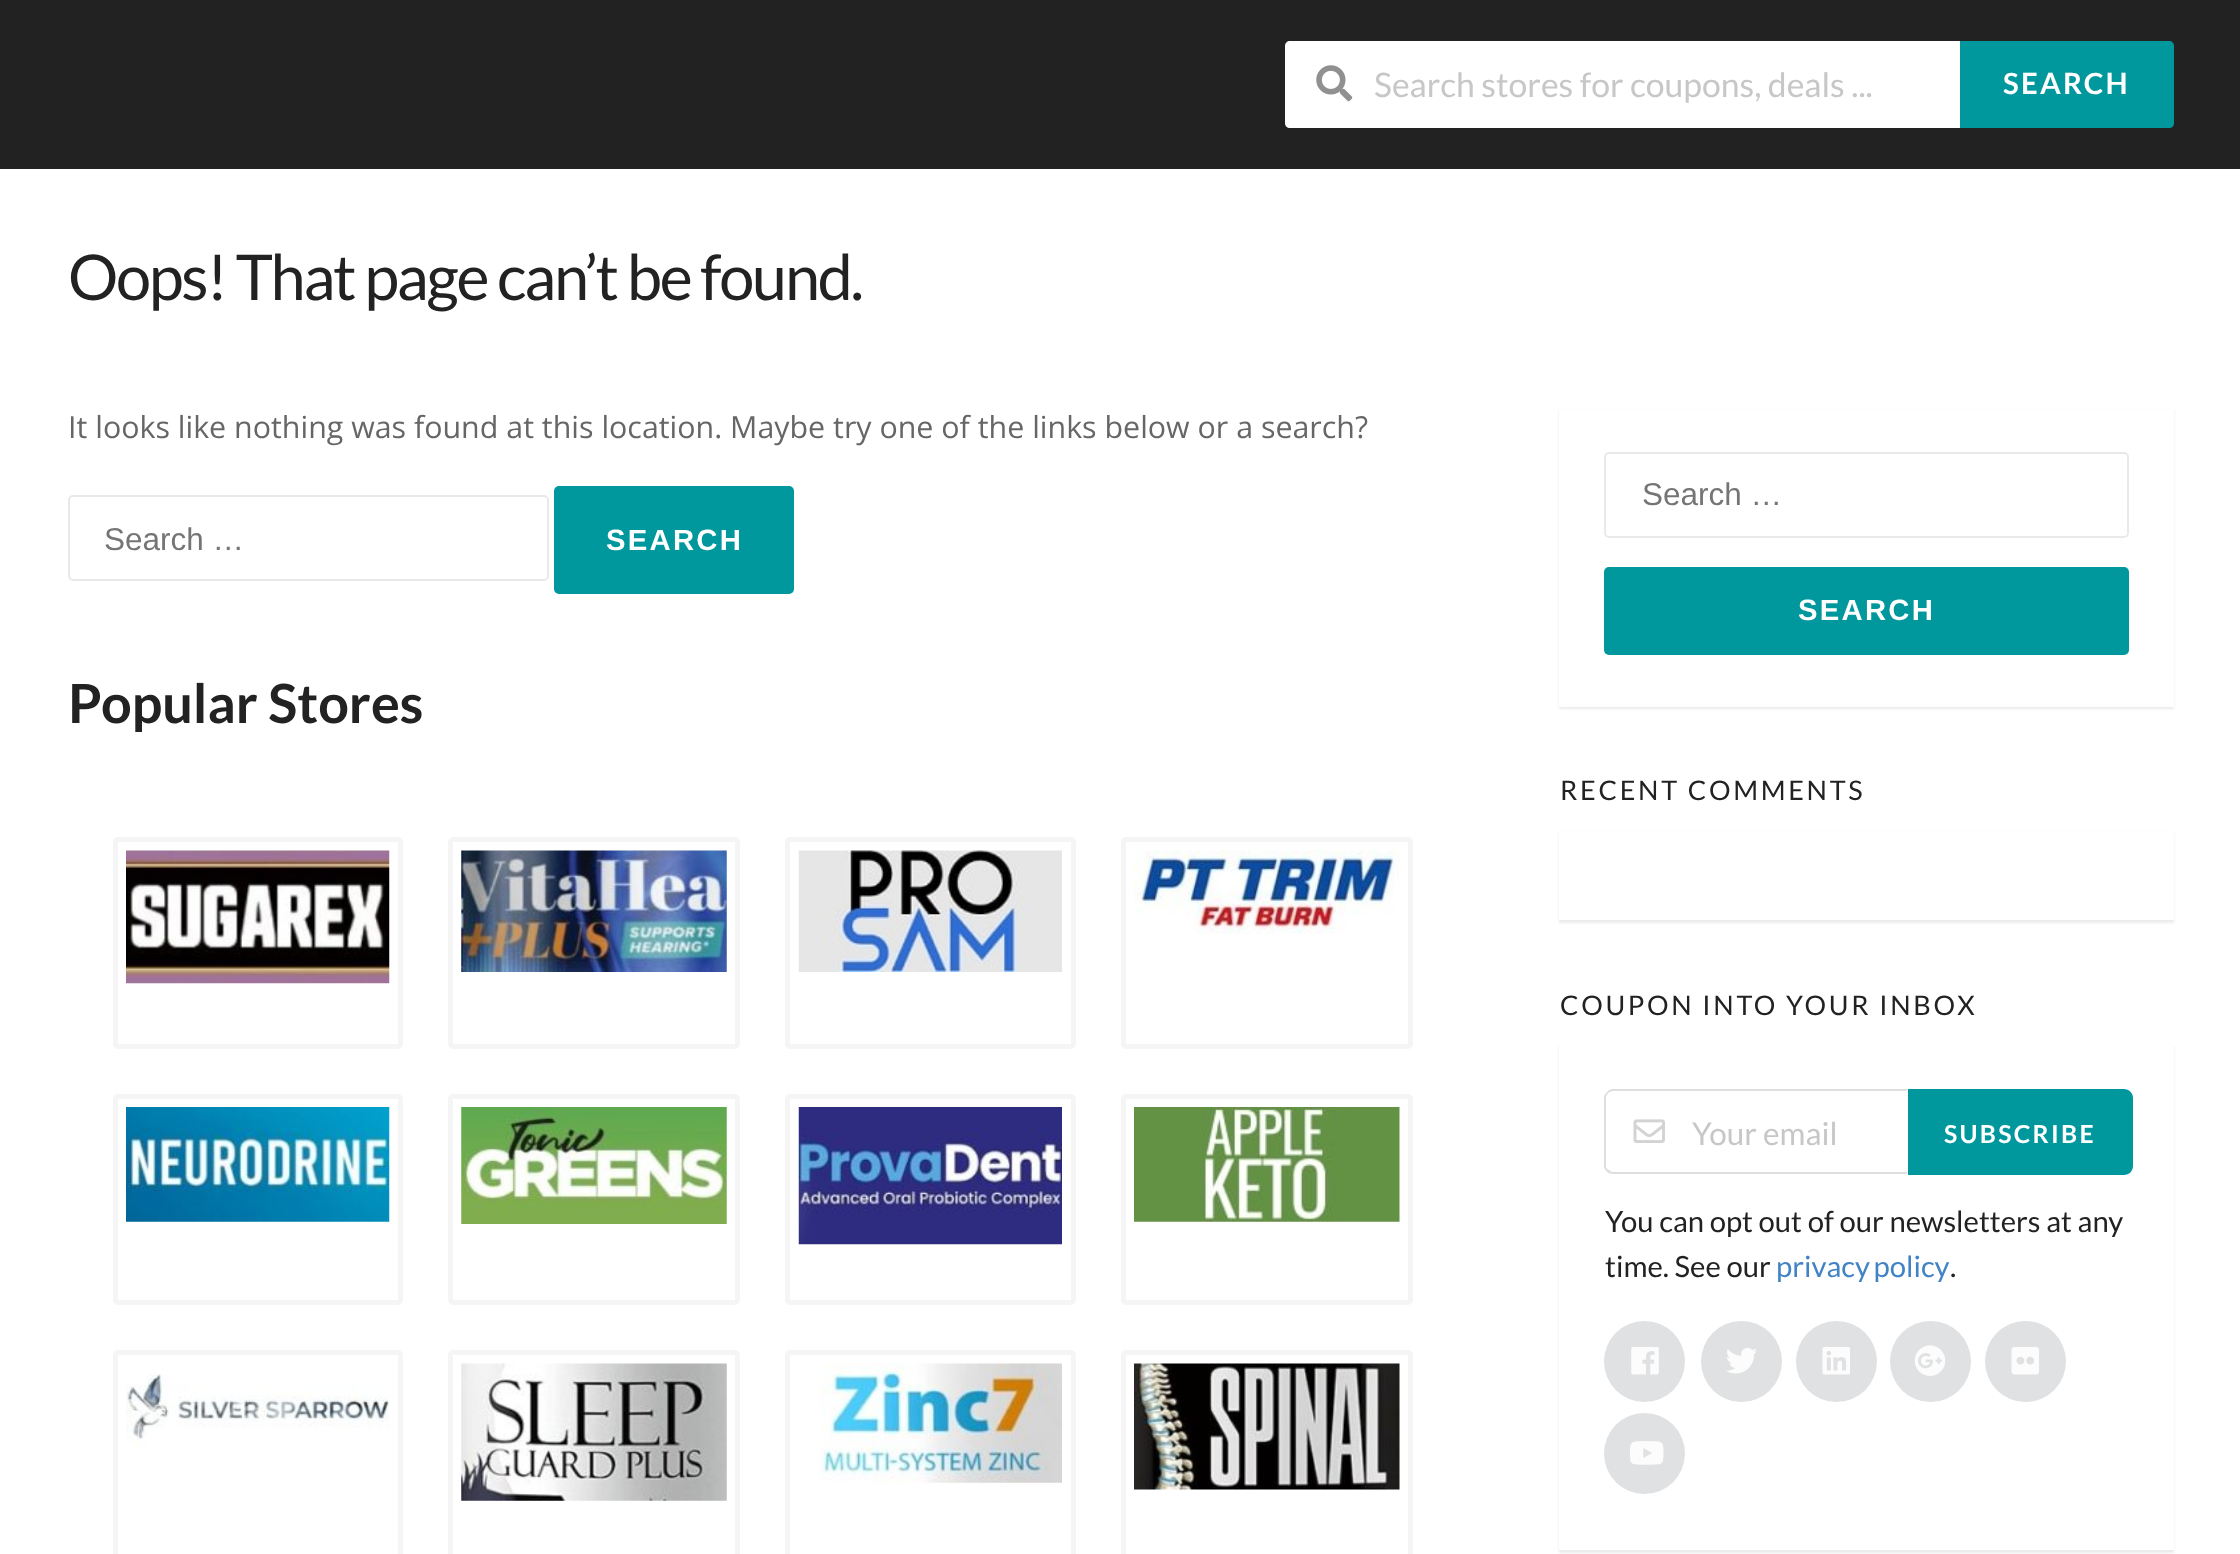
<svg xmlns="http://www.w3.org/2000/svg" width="2240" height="1554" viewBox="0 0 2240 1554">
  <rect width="100%" height="100%" fill="rgb(255,255,255)"/>
  <rect x="0" y="0" width="2240" height="169" fill="rgb(34,34,34)"/>
  <path d="M1290 41H1960V128H1290C1287 128 1285 126 1285 123V46C1285 43 1287 41 1290 41Z" fill="rgb(255,255,255)"/>
  <image x="1316" y="65" width="37" height="37" href="pic1.png"/>
  <text x="1374" y="97" font-family="Lato" font-size="33.75" fill="rgb(199,199,199)">Search stores for coupons, deals ...</text>
  <path d="M1960 41H2169C2172 41 2174 43 2174 46V123C2174 126 2172 128 2169 128H1960Z" fill="rgb(0,151,157)"/>
  <text x="2003" y="94" font-family="Lato" font-size="29.25" font-weight="bold" letter-spacing="2.25" fill="rgb(255,255,255)">SEARCH</text>
  <text x="68" y="300" font-family="Lato" font-size="63" letter-spacing="-2.25" fill="rgb(34,34,34)">Oops! That page can’t be found.</text>
  <text x="68" y="438" font-family="Open Sans" font-size="30.4" fill="rgb(102,102,102)">It looks like nothing was found at this location. Maybe try one of the links below or a search?</text>
  <rect x="69" y="496" width="479" height="84" rx="4" fill="none" stroke="rgb(233,233,233)" stroke-width="2"/>
  <text x="104" y="550" font-family="Liberation Sans" font-size="31.5" fill="rgb(117,117,117)">Search …</text>
  <rect x="554" y="486" width="240" height="108" rx="5" fill="rgb(0,151,157)"/>
  <text x="606" y="550" font-family="Liberation Sans" font-size="29.25" font-weight="bold" letter-spacing="2.25" fill="rgb(255,255,255)">SEARCH</text>
  <text x="68" y="723" font-family="Lato" font-size="54" font-weight="bold" fill="rgb(34,34,34)">Popular Stores</text>
  <rect x="115.5" y="839.5" width="285" height="207" rx="2.5" fill="none" stroke="rgb(245,245,245)" stroke-width="5"/>
  <image x="126" y="850" width="264" height="134" href="pic2.png"/>
  <rect x="450.5" y="839.5" width="287" height="207" rx="2.5" fill="none" stroke="rgb(245,245,245)" stroke-width="5"/>
  <image x="461" y="850" width="266" height="122" href="pic3.png"/>
  <rect x="787.5" y="839.5" width="286" height="207" rx="2.5" fill="none" stroke="rgb(245,245,245)" stroke-width="5"/>
  <image x="798" y="850" width="264" height="122" href="pic4.png"/>
  <rect x="1123.5" y="839.5" width="287" height="207" rx="2.5" fill="none" stroke="rgb(245,245,245)" stroke-width="5"/>
  <image x="1134" y="850" width="266" height="84" href="pic5.png"/>
  <rect x="115.5" y="1096.5" width="285" height="206" rx="2.5" fill="none" stroke="rgb(245,245,245)" stroke-width="5"/>
  <image x="126" y="1107" width="264" height="115" href="pic6.png"/>
  <rect x="450.5" y="1096.5" width="287" height="206" rx="2.5" fill="none" stroke="rgb(245,245,245)" stroke-width="5"/>
  <image x="461" y="1107" width="266" height="117" href="pic7.png"/>
  <rect x="787.5" y="1096.5" width="286" height="206" rx="2.5" fill="none" stroke="rgb(245,245,245)" stroke-width="5"/>
  <image x="798" y="1107" width="264" height="138" href="pic8.png"/>
  <rect x="1123.5" y="1096.5" width="287" height="206" rx="2.5" fill="none" stroke="rgb(245,245,245)" stroke-width="5"/>
  <image x="1134" y="1107" width="266" height="115" href="pic9.png"/>
  <rect x="115.5" y="1352.5" width="285" height="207" rx="2.5" fill="none" stroke="rgb(245,245,245)" stroke-width="5"/>
  <image x="126" y="1374" width="263" height="74" href="pic10.png"/>
  <rect x="450.5" y="1352.5" width="287" height="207" rx="2.5" fill="none" stroke="rgb(245,245,245)" stroke-width="5"/>
  <image x="461" y="1363" width="266" height="138" href="pic11.png"/>
  <rect x="787.5" y="1352.5" width="286" height="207" rx="2.5" fill="none" stroke="rgb(245,245,245)" stroke-width="5"/>
  <image x="820" y="1363" width="242" height="120" href="pic12.png"/>
  <rect x="1123.5" y="1352.5" width="287" height="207" rx="2.5" fill="none" stroke="rgb(245,245,245)" stroke-width="5"/>
  <image x="1134" y="1363" width="266" height="127" href="pic13.png"/>
  <rect x="1559" y="410" width="615" height="299" fill="rgba(0,0,0,0.08)" filter="blur(1px)"/>
  <rect x="1559" y="409" width="615" height="298" fill="rgb(255,255,255)"/>
  <rect x="1605" y="453" width="523" height="84" rx="4" fill="none" stroke="rgb(233,233,233)" stroke-width="2"/>
  <text x="1642" y="505" font-family="Liberation Sans" font-size="31.5" fill="rgb(117,117,117)">Search …</text>
  <rect x="1604" y="567" width="525" height="88" rx="5" fill="rgb(0,151,157)"/>
  <text x="1798" y="620" font-family="Liberation Sans" font-size="29.25" font-weight="bold" letter-spacing="2.25" fill="rgb(255,255,255)">SEARCH</text>
  <text x="1560" y="800" font-family="Lato" font-size="27" letter-spacing="2.7" fill="rgb(34,34,34)">RECENT COMMENTS</text>
  <rect x="1559" y="833" width="615" height="90" fill="rgba(0,0,0,0.08)" filter="blur(1px)"/>
  <rect x="1559" y="832" width="615" height="88" fill="rgb(255,255,255)"/>
  <text x="1560" y="1015" font-family="Lato" font-size="27" letter-spacing="2.7" fill="rgb(34,34,34)">COUPON INTO YOUR INBOX</text>
  <rect x="1559" y="1046" width="615" height="507" fill="rgba(0,0,0,0.08)" filter="blur(1px)"/>
  <rect x="1559" y="1045" width="615" height="505" fill="rgb(255,255,255)"/>
  <image x="1633" y="1119" width="32" height="24" href="pic14.png"/>
  <path d="M1613 1089C1611 1089 1608 1090 1607 1092L1608 1093L1612 1091H1906L1908 1089Z" fill="rgb(222,222,222)"/>
  <path d="M1908 1174H1613C1611 1174 1609 1173 1607 1172L1609 1170L1612 1172H1906Z" fill="rgb(222,222,222)"/>
  <path d="M1604 1096C1605 1094 1606 1093 1607 1092L1608 1093C1607 1094 1606 1096 1606 1098V1166C1606 1168 1607 1169 1609 1170L1607 1172C1606 1171 1605 1169 1604 1168Z" fill="rgba(34,36,38,0.15)"/>
  <text x="1692" y="1145" font-family="Lato" font-size="31.5" fill="rgb(199,199,199)">Your email</text>
  <path d="M1908 1089H2124C2129 1089 2133 1093 2133 1098V1166C2133 1171 2129 1175 2124 1175H1908Z" fill="rgb(0,151,157)"/>
  <text x="1944" y="1143" font-family="Lato" font-size="24.75" font-weight="bold" letter-spacing="2.25" fill="rgb(255,255,255)">SUBSCRIBE</text>
  <g font-family="Lato" font-size="29.25" fill="rgb(34,34,34)">
    <text>
      <tspan x="1605" y="1232">You can opt out of our newsletters at any</tspan>
      <tspan x="1605" y="1277">time. See our</tspan>
    </text>
  </g>
  <text x="1776" y="1277" word-spacing="-2" font-family="Lato" font-size="29.25" fill="rgb(65,131,196)">privacy policy</text>
  <text x="1950" y="1277" font-family="Lato" font-size="29.25" fill="rgb(34,34,34)">.</text>
  <circle cx="1644.5" cy="1361.5" r="40.5" fill="rgb(224,225,226)"/>
  <image x="1631" y="1347" width="28" height="28" href="pic15.png"/>
  <circle cx="1741.5" cy="1361.5" r="40.5" fill="rgb(224,225,226)"/>
  <image x="1726" y="1348" width="31" height="26" href="pic16.png"/>
  <circle cx="1836.5" cy="1361.5" r="40.5" fill="rgb(224,225,226)"/>
  <image x="1822" y="1347" width="28" height="28" href="pic17.png"/>
  <circle cx="1930.5" cy="1361.5" r="40.5" fill="rgb(224,225,226)"/>
  <image x="1914" y="1345" width="32" height="31" href="pic18.png"/>
  <circle cx="2025.5" cy="1361.5" r="40.5" fill="rgb(224,225,226)"/>
  <image x="2011" y="1347" width="28" height="28" href="pic19.png"/>
  <circle cx="1644.5" cy="1453.5" r="40.5" fill="rgb(224,225,226)"/>
  <image x="1630" y="1441" width="34" height="24" href="pic20.png"/>
</svg>
